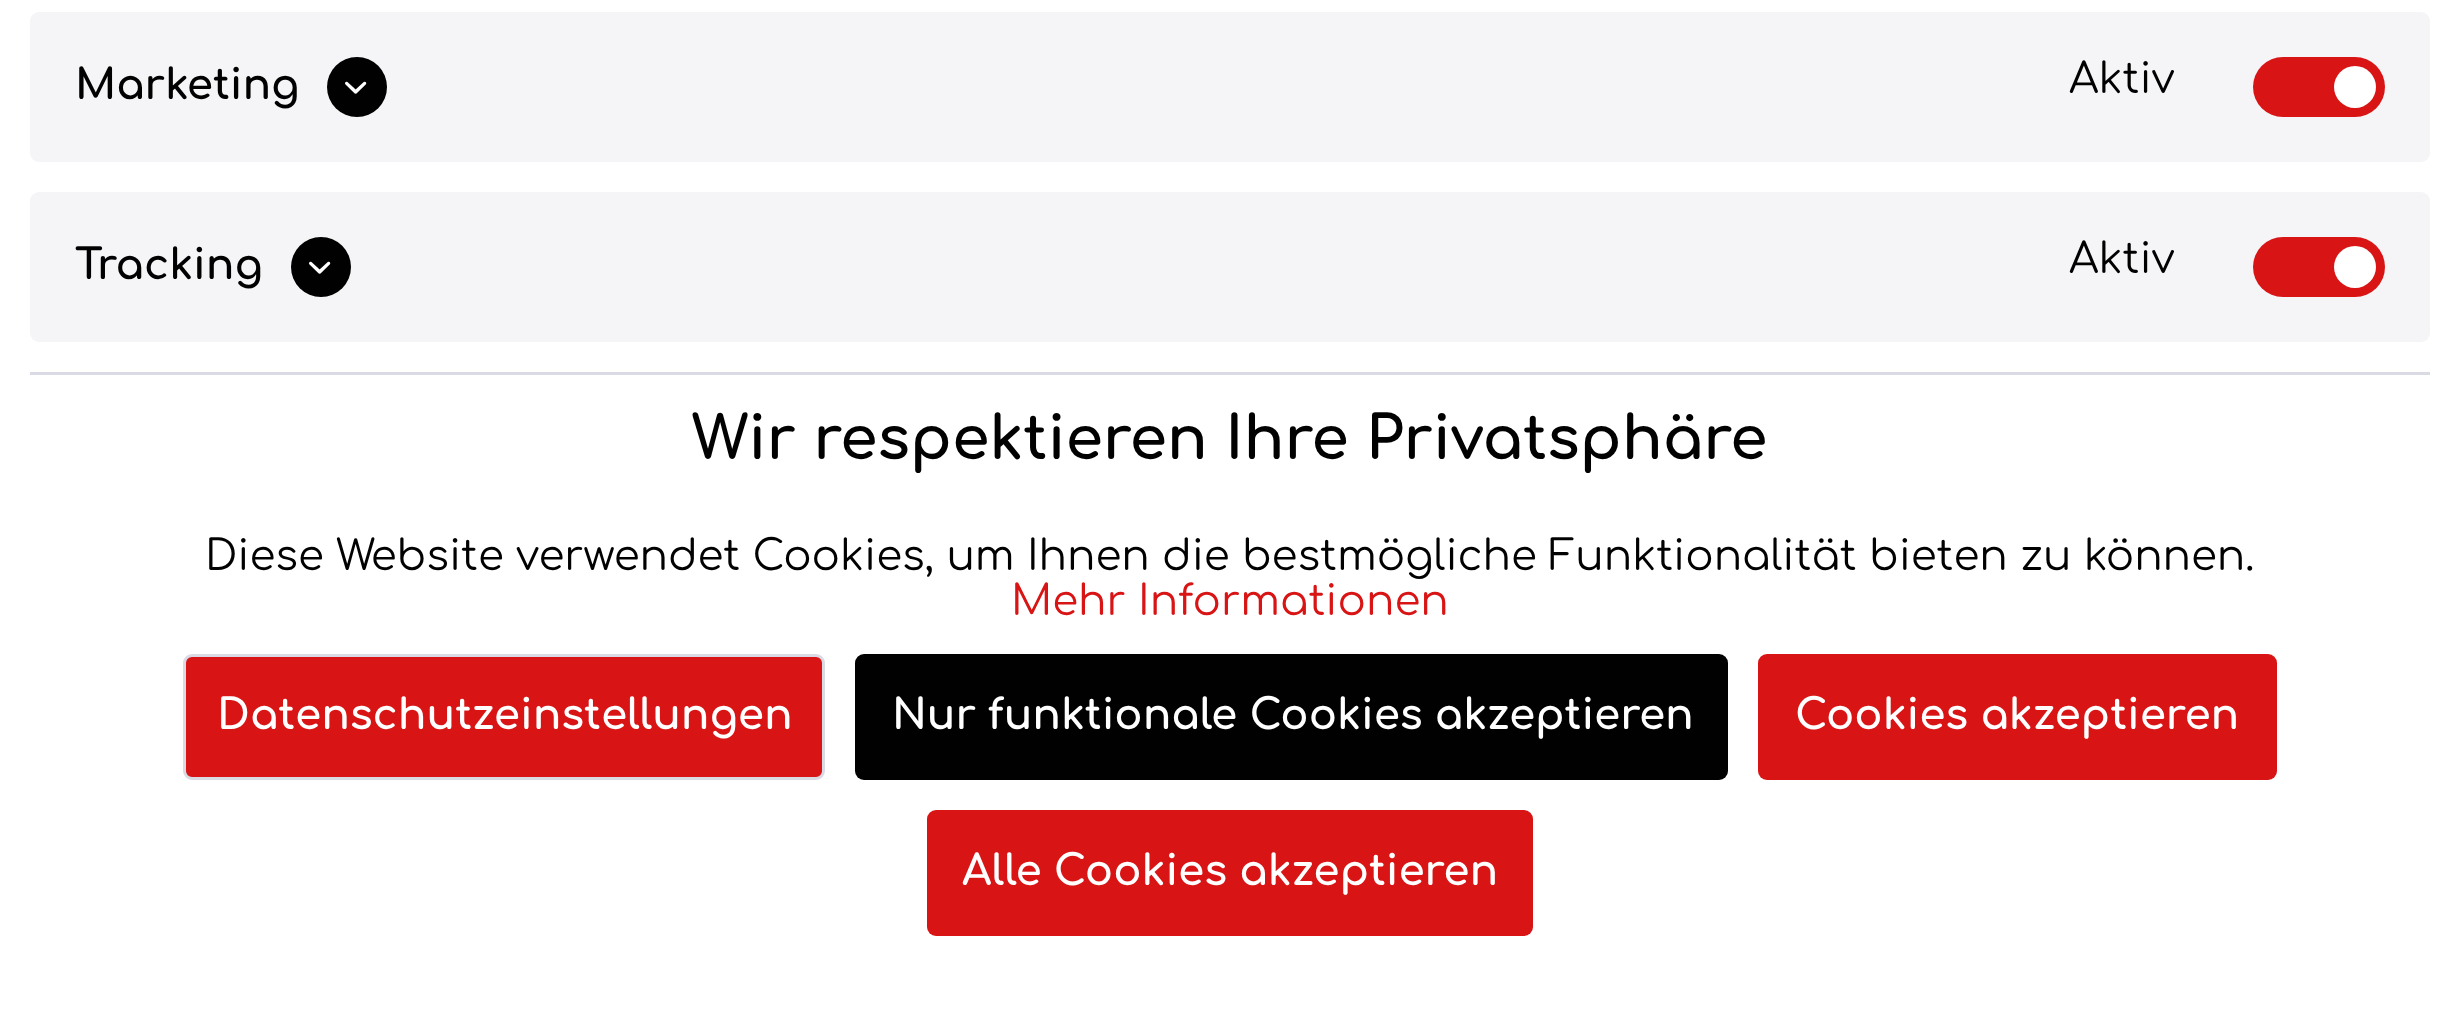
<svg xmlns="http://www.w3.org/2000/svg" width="2460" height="1011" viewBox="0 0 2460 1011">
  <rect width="100%" height="100%" fill="rgb(255,255,255)"/>
  <rect x="30" y="372" width="2400" height="3" fill="rgb(218,218,229)"/>
  <rect x="30" y="12" width="2400" height="150" rx="9" fill="rgb(245,245,248)"/>
  <text x="75" y="99" font-family="Comfortaa" font-size="42" font-weight="bold" fill="rgb(1,1,1)">Marketing</text>
  <circle cx="357" cy="87" r="30" fill="rgb(1,1,1)"/>
  <image x="345" y="81" width="22" height="13" href="pic1.png"/>
  <text x="2069" y="93" font-family="Comfortaa" font-size="42" fill="rgb(1,1,1)">Aktiv</text>
  <rect x="2253" y="57" width="132" height="60" rx="30" fill="rgb(216,20,21)"/>
  <circle cx="2355" cy="87" r="21" fill="rgb(255,255,255)"/>
  <rect x="30" y="192" width="2400" height="150" rx="9" fill="rgb(245,245,248)"/>
  <text x="75" y="279" font-family="Comfortaa" font-size="42" font-weight="bold" fill="rgb(1,1,1)">Tracking</text>
  <circle cx="321" cy="267" r="30" fill="rgb(1,1,1)"/>
  <image x="309" y="261" width="22" height="13" href="pic1.png"/>
  <text x="2069" y="273" font-family="Comfortaa" font-size="42" fill="rgb(1,1,1)">Aktiv</text>
  <rect x="2253" y="237" width="132" height="60" rx="30" fill="rgb(216,20,21)"/>
  <circle cx="2355" cy="267" r="21" fill="rgb(255,255,255)"/>
  <text x="692" y="459" font-family="Comfortaa" font-size="60" font-weight="bold" fill="rgb(1,1,1)">Wir respektieren Ihre Privatsphäre</text>
  <text x="205" y="570" font-family="Comfortaa" font-size="42" fill="rgb(1,1,1)">Diese Website verwendet Cookies, um Ihnen die bestmögliche Funktionalität bieten zu können.</text>
  <text x="1011" y="615" font-family="Comfortaa" font-size="42" fill="rgb(216,20,21)">Mehr Informationen</text>
  <rect x="184.5" y="655.5" width="639" height="123" rx="7.5" fill="rgb(216,20,21)" stroke="rgb(218,218,229)" stroke-width="3"/>
  <text x="217" y="729" font-family="Comfortaa" font-size="42" font-weight="bold" fill="rgb(255,255,255)">Datenschutzeinstellungen</text>
  <rect x="855" y="654" width="873" height="126" rx="9" fill="rgb(1,1,1)"/>
  <text x="892" y="729" font-family="Comfortaa" font-size="42" font-weight="bold" fill="rgb(255,255,255)">Nur funktionale Cookies akzeptieren</text>
  <rect x="1758" y="654" width="519" height="126" rx="9" fill="rgb(216,20,21)"/>
  <text x="1795" y="729" font-family="Comfortaa" font-size="42" font-weight="bold" fill="rgb(255,255,255)">Cookies akzeptieren</text>
  <rect x="927" y="810" width="606" height="126" rx="9" fill="rgb(216,20,21)"/>
  <text x="962" y="885" font-family="Comfortaa" font-size="42" font-weight="bold" fill="rgb(255,255,255)">Alle Cookies akzeptieren</text>
</svg>
